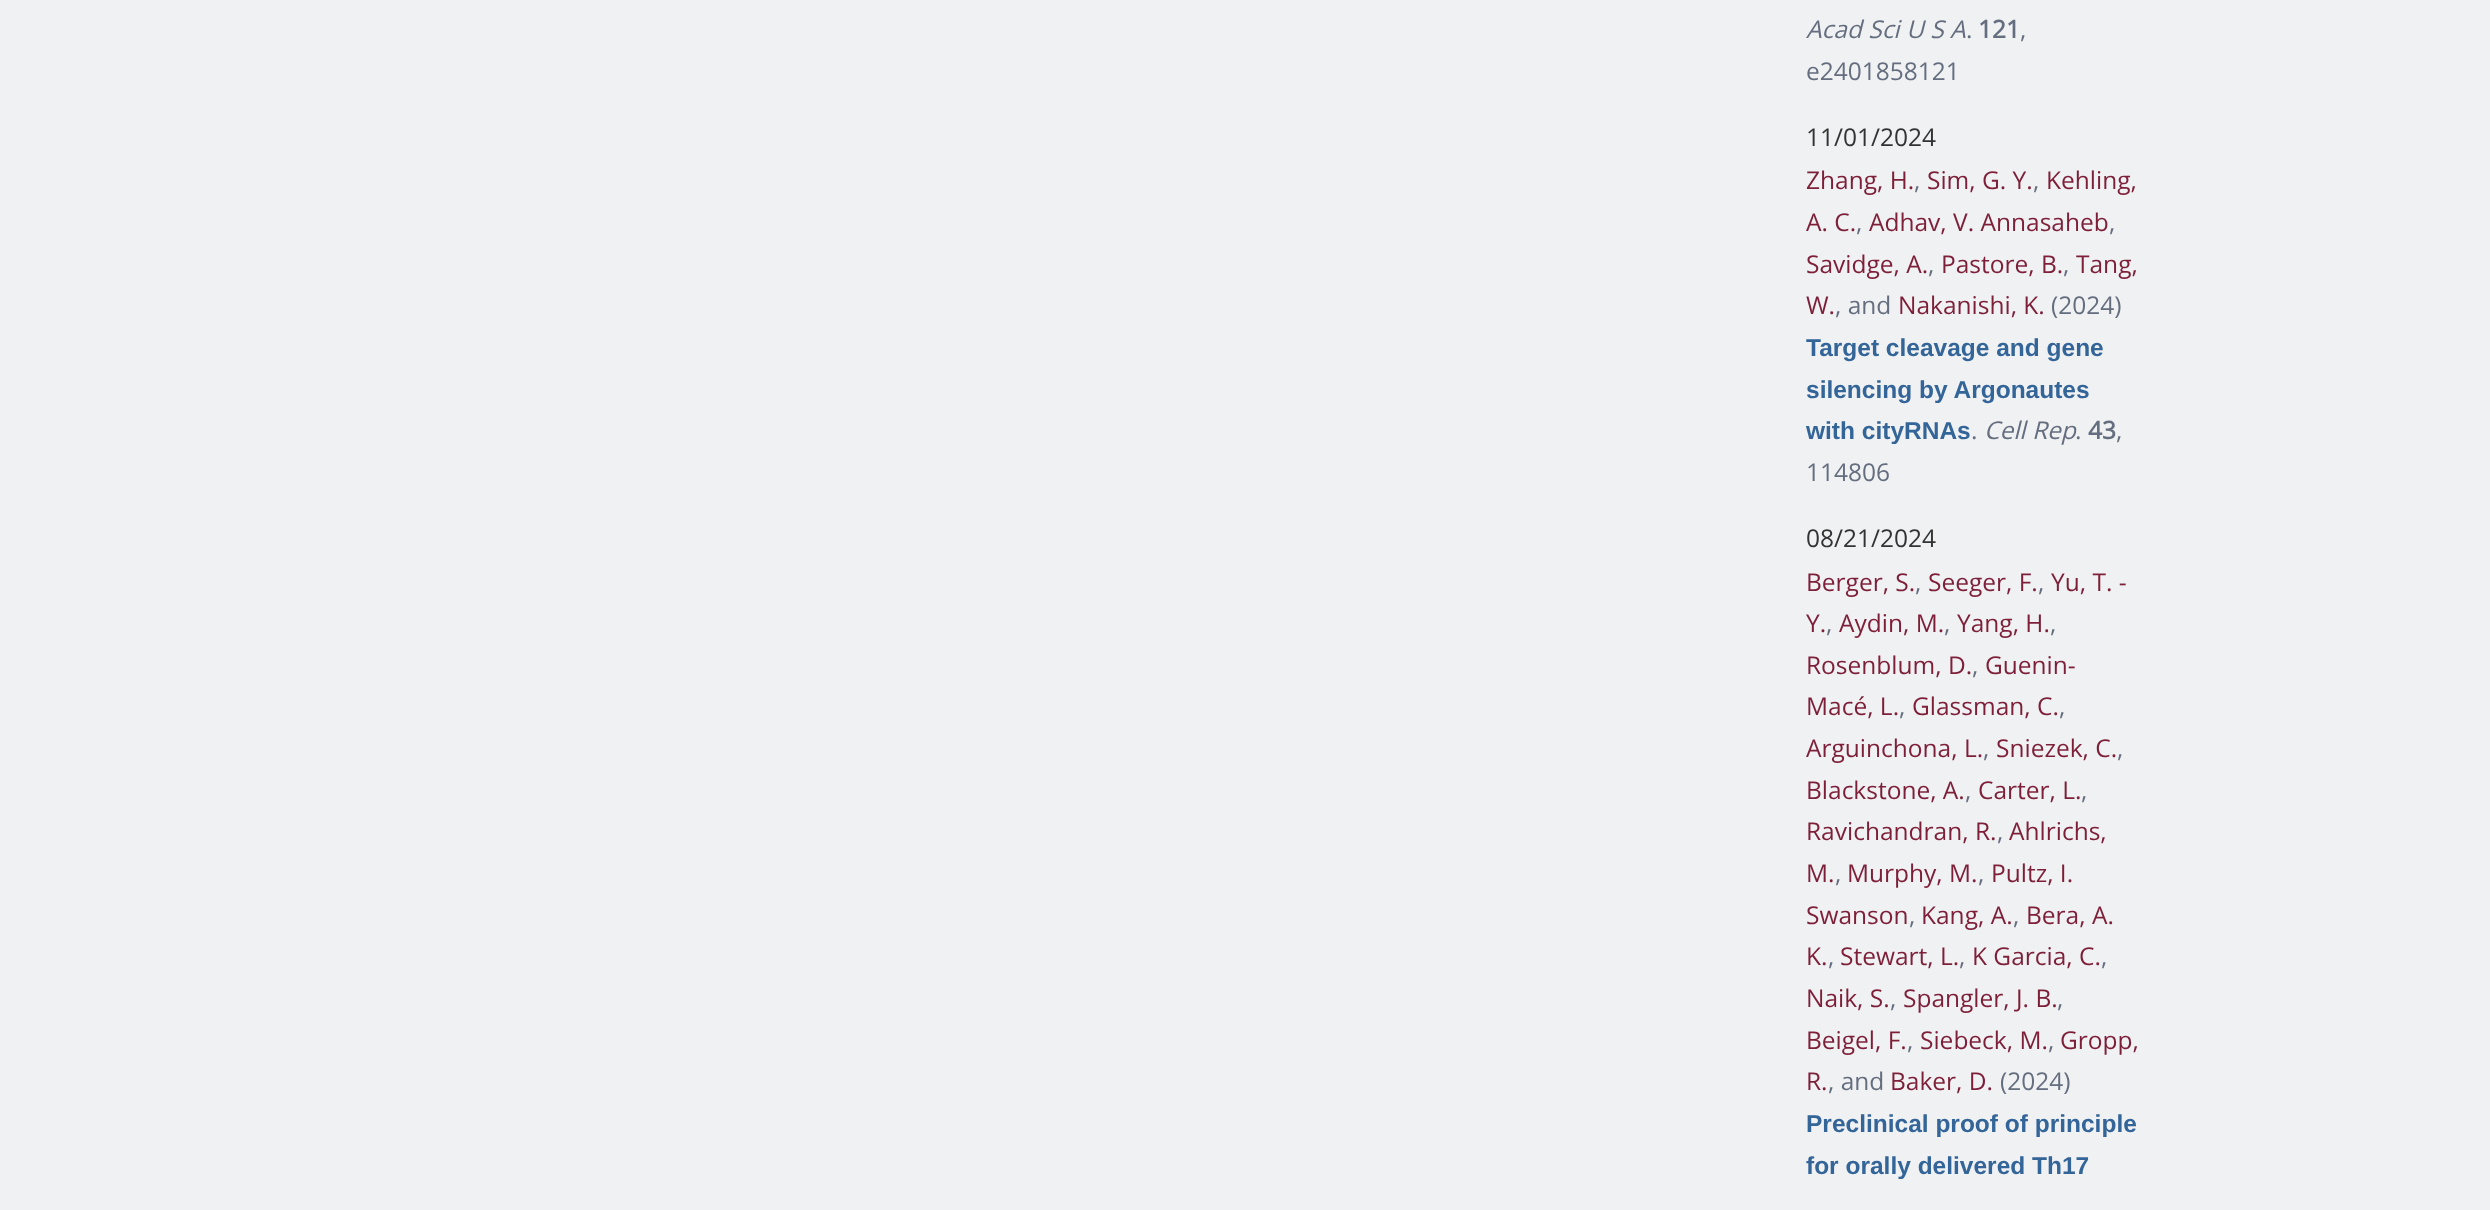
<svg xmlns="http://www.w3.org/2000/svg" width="2490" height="1210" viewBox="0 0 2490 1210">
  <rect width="100%" height="100%" fill="rgb(240,241,243)"/>
  <text x="1806" y="38" font-family="Open Sans" font-size="24.5" font-style="italic" fill="rgb(101,110,127)">Acad Sci U S A</text>
  <text x="1966" y="38" font-family="Open Sans" font-size="24.5" fill="rgb(101,110,127)">.</text>
  <text x="1978" y="38" font-family="Open Sans" font-size="24.5" font-weight="bold" fill="rgb(101,110,127)">121</text>
  <g font-family="Open Sans" font-size="24.5" fill="rgb(101,110,127)">
    <text x="2020" y="38">,</text>
    <text x="1806" y="80">e2401858121</text>
  </g>
  <text x="1806" y="146" font-family="Open Sans" font-size="24.5" fill="rgb(51,51,51)">11/01/2024</text>
  <text x="1806" y="189" font-family="Open Sans" font-size="24.5" fill="rgb(125,31,56)">Zhang, H.</text>
  <text x="1914" y="189" font-family="Open Sans" font-size="24.5" fill="rgb(101,110,127)">,</text>
  <text x="1927" y="189" font-family="Open Sans" font-size="24.5" fill="rgb(125,31,56)">Sim, G. Y.</text>
  <text x="2033" y="189" font-family="Open Sans" font-size="24.5" fill="rgb(101,110,127)">,</text>
  <g font-family="Open Sans" font-size="24.5" fill="rgb(125,31,56)">
    <text x="2046" y="189">Kehling,</text>
    <text x="1806" y="231">A. C.</text>
  </g>
  <text x="1856" y="231" font-family="Open Sans" font-size="24.5" fill="rgb(101,110,127)">,</text>
  <text x="1869" y="231" font-family="Open Sans" font-size="24.5" fill="rgb(125,31,56)">Adhav, V. Annasaheb</text>
  <text x="2109" y="231" font-family="Open Sans" font-size="24.5" fill="rgb(101,110,127)">,</text>
  <text x="1806" y="273" font-family="Open Sans" font-size="24.5" fill="rgb(125,31,56)">Savidge, A.</text>
  <text x="1928" y="273" font-family="Open Sans" font-size="24.5" fill="rgb(101,110,127)">,</text>
  <text x="1941" y="273" font-family="Open Sans" font-size="24.5" fill="rgb(125,31,56)">Pastore, B.</text>
  <text x="2063" y="273" font-family="Open Sans" font-size="24.5" fill="rgb(101,110,127)">,</text>
  <g font-family="Open Sans" font-size="24.5" fill="rgb(125,31,56)">
    <text x="2076" y="273">Tang,</text>
    <text x="1806" y="314">W.</text>
  </g>
  <text x="1835" y="314" font-family="Open Sans" font-size="24.5" fill="rgb(101,110,127)">, and</text>
  <text x="1898" y="314" font-family="Open Sans" font-size="24.5" fill="rgb(125,31,56)">Nakanishi, K.</text>
  <text x="2051" y="314" font-family="Open Sans" font-size="24.5" fill="rgb(101,110,127)">(2024)</text>
  <g font-family="Liberation Sans" font-size="24.5" font-weight="bold" fill="rgb(51,101,153)">
    <text>
      <tspan x="1806" y="356">Target cleavage and gene</tspan>
      <tspan x="1806" y="398">silencing by Argonautes</tspan>
      <tspan x="1806" y="439">with cityRNAs</tspan>
    </text>
  </g>
  <text x="1971" y="439" font-family="Open Sans" font-size="24.5" fill="rgb(101,110,127)">.</text>
  <text x="1984" y="439" font-family="Open Sans" font-size="24.5" font-style="italic" fill="rgb(101,110,127)">Cell Rep</text>
  <text x="2075" y="439" font-family="Open Sans" font-size="24.5" fill="rgb(101,110,127)">.</text>
  <text x="2088" y="439" font-family="Open Sans" font-size="24.5" font-weight="bold" fill="rgb(101,110,127)">43</text>
  <g font-family="Open Sans" font-size="24.5" fill="rgb(101,110,127)">
    <text x="2116" y="439">,</text>
    <text x="1806" y="481">114806</text>
  </g>
  <text x="1806" y="547" font-family="Open Sans" font-size="24.5" fill="rgb(51,51,51)">08/21/2024</text>
  <text x="1806" y="591" font-family="Open Sans" font-size="24.5" fill="rgb(125,31,56)">Berger, S.</text>
  <text x="1915" y="591" font-family="Open Sans" font-size="24.5" fill="rgb(101,110,127)">,</text>
  <text x="1928" y="591" font-family="Open Sans" font-size="24.5" fill="rgb(125,31,56)">Seeger, F.</text>
  <text x="2038" y="591" font-family="Open Sans" font-size="24.5" fill="rgb(101,110,127)">,</text>
  <g font-family="Open Sans" font-size="24.5" fill="rgb(125,31,56)">
    <text x="2051" y="591">Yu, T. -</text>
    <text x="1806" y="632">Y.</text>
  </g>
  <text x="1826" y="632" font-family="Open Sans" font-size="24.5" fill="rgb(101,110,127)">,</text>
  <text x="1839" y="632" font-family="Open Sans" font-size="24.5" fill="rgb(125,31,56)">Aydin, M.</text>
  <text x="1944" y="632" font-family="Open Sans" font-size="24.5" fill="rgb(101,110,127)">,</text>
  <text x="1957" y="632" font-family="Open Sans" font-size="24.5" fill="rgb(125,31,56)">Yang, H.</text>
  <text x="2050" y="632" font-family="Open Sans" font-size="24.5" fill="rgb(101,110,127)">,</text>
  <text x="1806" y="674" font-family="Open Sans" font-size="24.5" fill="rgb(125,31,56)">Rosenblum, D.</text>
  <text x="1972" y="674" font-family="Open Sans" font-size="24.5" fill="rgb(101,110,127)">,</text>
  <g font-family="Open Sans" font-size="24.5" fill="rgb(125,31,56)">
    <text x="1985" y="674">Guenin-</text>
    <text x="1806" y="715">Macé, L.</text>
  </g>
  <text x="1899" y="715" font-family="Open Sans" font-size="24.5" fill="rgb(101,110,127)">,</text>
  <text x="1912" y="715" font-family="Open Sans" font-size="24.5" fill="rgb(125,31,56)">Glassman, C.</text>
  <text x="2059" y="715" font-family="Open Sans" font-size="24.5" fill="rgb(101,110,127)">,</text>
  <text x="1806" y="757" font-family="Open Sans" font-size="24.5" fill="rgb(125,31,56)">Arguinchona, L.</text>
  <text x="1983" y="757" font-family="Open Sans" font-size="24.5" fill="rgb(101,110,127)">,</text>
  <text x="1996" y="757" font-family="Open Sans" font-size="24.5" fill="rgb(125,31,56)">Sniezek, C.</text>
  <text x="2117" y="757" font-family="Open Sans" font-size="24.5" fill="rgb(101,110,127)">,</text>
  <text x="1806" y="799" font-family="Open Sans" font-size="24.5" fill="rgb(125,31,56)">Blackstone, A.</text>
  <text x="1965" y="799" font-family="Open Sans" font-size="24.5" fill="rgb(101,110,127)">,</text>
  <text x="1978" y="799" font-family="Open Sans" font-size="24.5" fill="rgb(125,31,56)">Carter, L.</text>
  <text x="2081" y="799" font-family="Open Sans" font-size="24.5" fill="rgb(101,110,127)">,</text>
  <text x="1806" y="840" font-family="Open Sans" font-size="24.5" fill="rgb(125,31,56)">Ravichandran, R.</text>
  <text x="1997" y="840" font-family="Open Sans" font-size="24.5" fill="rgb(101,110,127)">,</text>
  <g font-family="Open Sans" font-size="24.5" fill="rgb(125,31,56)">
    <text x="2009" y="840">Ahlrichs,</text>
    <text x="1806" y="882">M.</text>
  </g>
  <text x="1835" y="882" font-family="Open Sans" font-size="24.5" fill="rgb(101,110,127)">,</text>
  <text x="1847" y="882" font-family="Open Sans" font-size="24.5" fill="rgb(125,31,56)">Murphy, M.</text>
  <text x="1978" y="882" font-family="Open Sans" font-size="24.5" fill="rgb(101,110,127)">,</text>
  <g font-family="Open Sans" font-size="24.5" fill="rgb(125,31,56)">
    <text x="1991" y="882">Pultz, I.</text>
    <text x="1806" y="924">Swanson</text>
  </g>
  <text x="1909" y="924" font-family="Open Sans" font-size="24.5" fill="rgb(101,110,127)">,</text>
  <text x="1921" y="924" font-family="Open Sans" font-size="24.5" fill="rgb(125,31,56)">Kang, A.</text>
  <text x="2013" y="924" font-family="Open Sans" font-size="24.5" fill="rgb(101,110,127)">,</text>
  <g font-family="Open Sans" font-size="24.5" fill="rgb(125,31,56)">
    <text x="2026" y="924">Bera, A.</text>
    <text x="1806" y="965">K.</text>
  </g>
  <text x="1828" y="965" font-family="Open Sans" font-size="24.5" fill="rgb(101,110,127)">,</text>
  <text x="1840" y="965" font-family="Open Sans" font-size="24.5" fill="rgb(125,31,56)">Stewart, L.</text>
  <text x="1959" y="965" font-family="Open Sans" font-size="24.5" fill="rgb(101,110,127)">,</text>
  <text x="1972" y="965" font-family="Open Sans" font-size="24.5" fill="rgb(125,31,56)">K Garcia, C.</text>
  <text x="2101" y="965" font-family="Open Sans" font-size="24.5" fill="rgb(101,110,127)">,</text>
  <text x="1806" y="1007" font-family="Open Sans" font-size="24.5" fill="rgb(125,31,56)">Naik, S.</text>
  <text x="1890" y="1007" font-family="Open Sans" font-size="24.5" fill="rgb(101,110,127)">,</text>
  <text x="1903" y="1007" font-family="Open Sans" font-size="24.5" fill="rgb(125,31,56)">Spangler, J. B.</text>
  <text x="2057" y="1007" font-family="Open Sans" font-size="24.5" fill="rgb(101,110,127)">,</text>
  <text x="1806" y="1049" font-family="Open Sans" font-size="24.5" fill="rgb(125,31,56)">Beigel, F.</text>
  <text x="1907" y="1049" font-family="Open Sans" font-size="24.5" fill="rgb(101,110,127)">,</text>
  <text x="1920" y="1049" font-family="Open Sans" font-size="24.5" fill="rgb(125,31,56)">Siebeck, M.</text>
  <text x="2048" y="1049" font-family="Open Sans" font-size="24.5" fill="rgb(101,110,127)">,</text>
  <g font-family="Open Sans" font-size="24.5" fill="rgb(125,31,56)">
    <text x="2060" y="1049">Gropp,</text>
    <text x="1806" y="1090">R.</text>
  </g>
  <text x="1828" y="1090" font-family="Open Sans" font-size="24.5" fill="rgb(101,110,127)">, and</text>
  <text x="1890" y="1090" font-family="Open Sans" font-size="24.5" fill="rgb(125,31,56)">Baker, D.</text>
  <text x="2000" y="1090" font-family="Open Sans" font-size="24.5" fill="rgb(101,110,127)">(2024)</text>
  <g font-family="Liberation Sans" font-size="24.5" font-weight="bold" fill="rgb(51,101,153)">
    <text>
      <tspan x="1806" y="1132">Preclinical proof of principle</tspan>
      <tspan x="1806" y="1174">for orally delivered Th17</tspan>
    </text>
  </g>
</svg>
